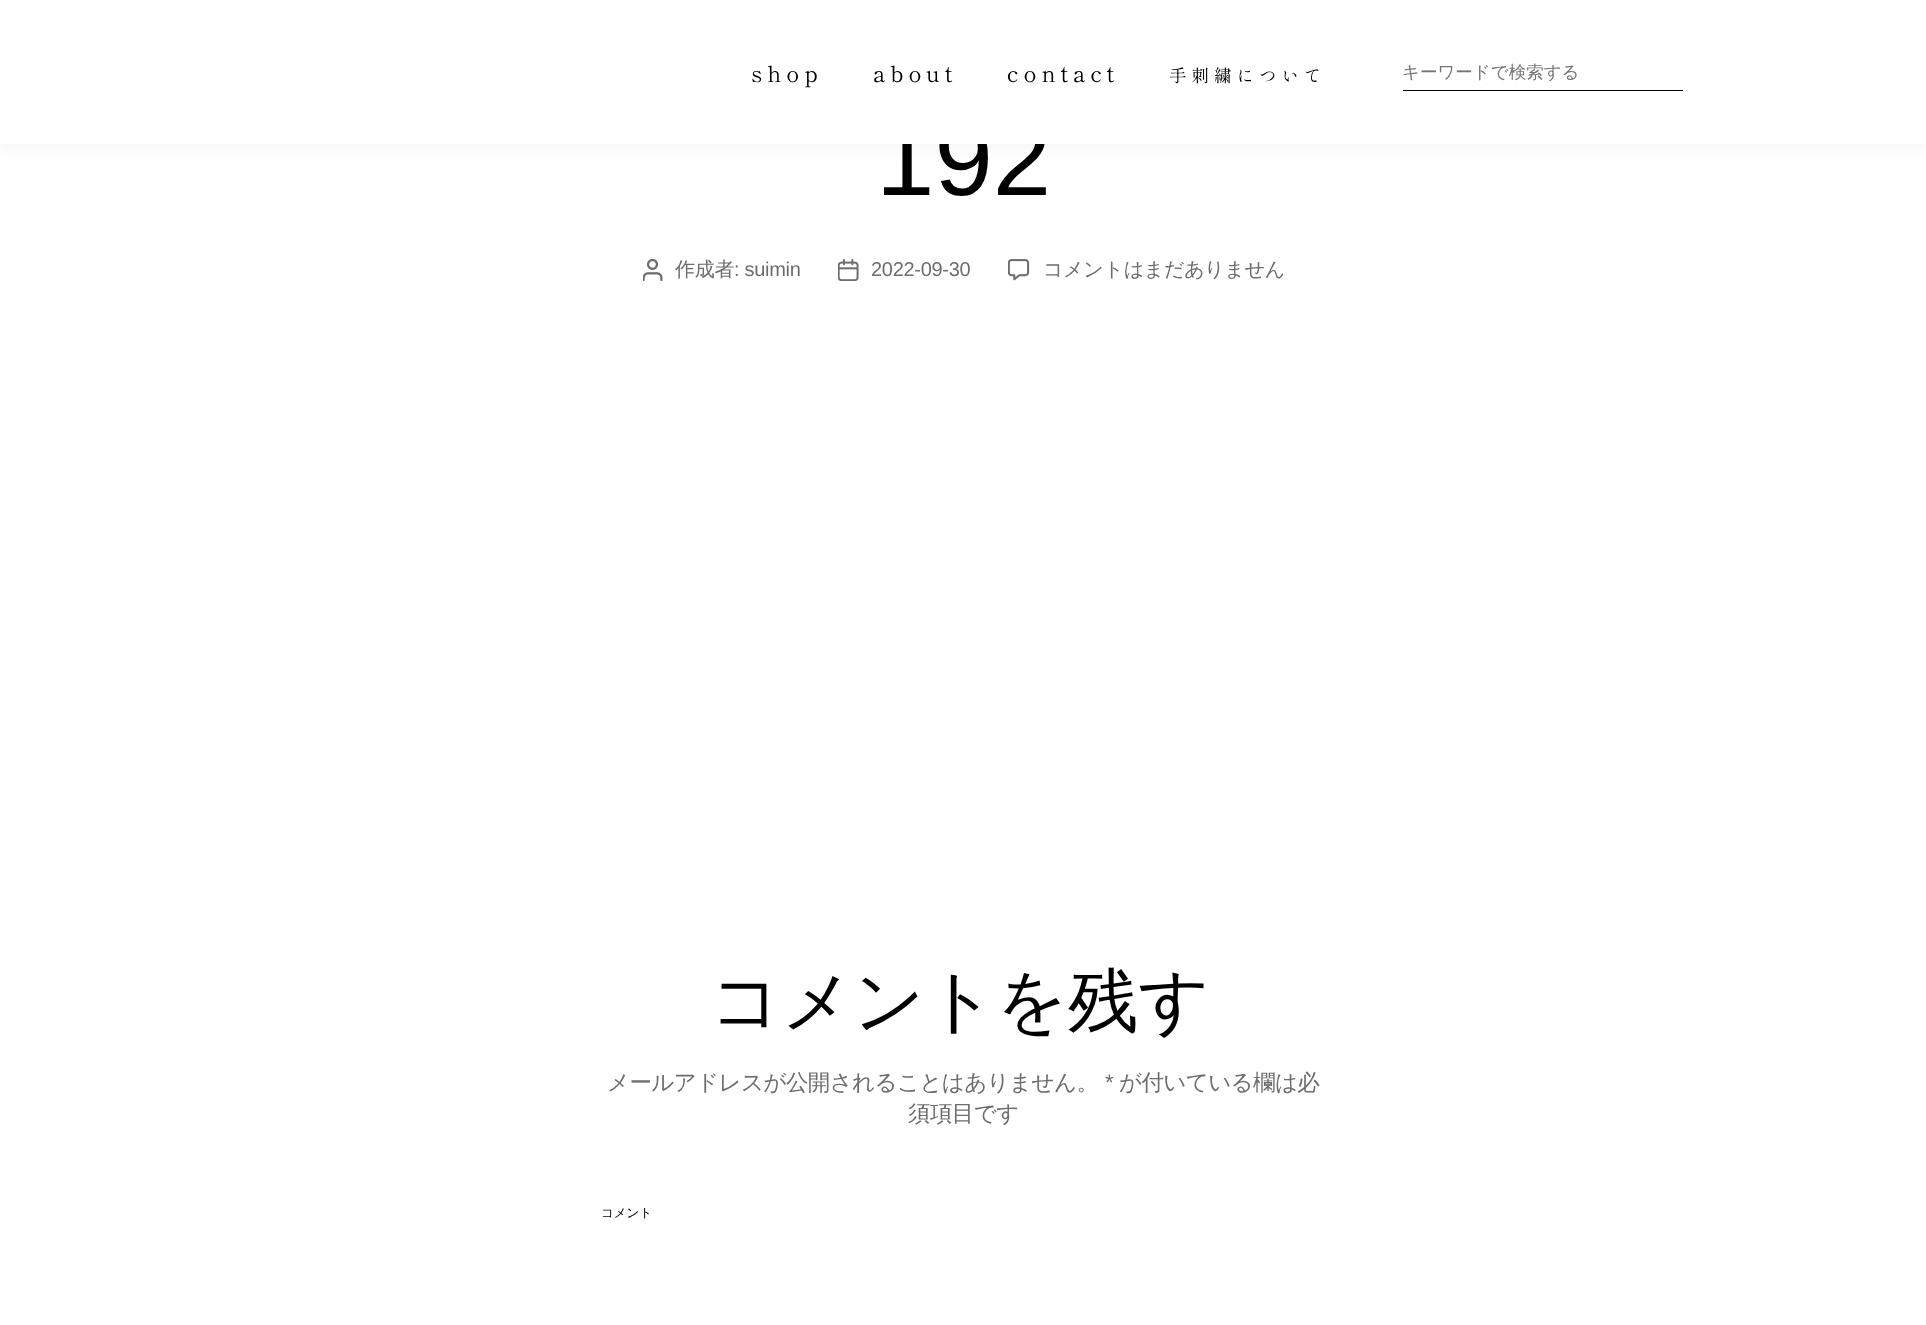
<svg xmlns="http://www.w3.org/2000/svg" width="1926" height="1325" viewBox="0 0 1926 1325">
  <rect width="100%" height="100%" fill="rgb(255,255,255)"/>
  <rect x="0" y="5" width="1926" height="144" fill="rgba(0,0,0,0.04)" filter="blur(9px)"/>
  <text x="876" y="195" font-family="Liberation Sans" font-size="105" fill="rgb(0,0,0)">192</text>
  <rect x="0" y="0" width="1926" height="144" fill="rgb(255,255,255)"/>
  <g font-family="'Shippori Mincho B1'" font-size="22.5" letter-spacing="5" fill="rgb(0,0,0)">
    <text x="751" y="82">shop</text>
    <text x="873" y="82">about</text>
    <text x="1007" y="82">contact</text>
  </g>
  <text x="1169" y="82" font-family="'Shippori Mincho B1'" font-size="17.5" letter-spacing="5" fill="rgb(0,0,0)">手刺繍について</text>
  <rect x="1403" y="90" width="280" height="1" fill="rgb(0,0,0)"/>
  <text x="1402" y="78" font-family="WenQuanYi Zen Hei" font-size="17.5" font-weight="500" fill="rgb(117,117,117)">キーワードで検索する</text>
  <image x="643" y="259" width="20" height="22" href="pic1.png"/>
  <text x="675" y="276" font-family="WenQuanYi Zen Hei" font-size="20" font-weight="500" letter-spacing="-0.3" fill="rgb(109,109,109)">作成者</text>
  <text x="734" y="276" font-family="Liberation Sans" font-size="20" letter-spacing="-0.3" fill="rgb(109,109,109)">: suimin</text>
  <image x="838" y="259" width="21" height="22" href="pic2.png"/>
  <text x="871" y="276" font-family="Liberation Sans" font-size="20" letter-spacing="-0.3" fill="rgb(109,109,109)">2022-09-30</text>
  <image x="1008" y="259" width="22" height="22" href="pic3.png"/>
  <text x="1043" y="276" font-family="WenQuanYi Zen Hei" font-size="20" font-weight="500" letter-spacing="-0.3" fill="rgb(109,109,109)">コメントはまだありません</text>
  <text x="710" y="1025" font-family="WenQuanYi Zen Hei" font-size="70" font-weight="500" fill="rgb(0,0,0)">コメントを残す</text>
  <text x="607" y="1090" font-family="WenQuanYi Zen Hei" font-size="22.5" font-weight="500" letter-spacing="-0.6" fill="rgb(109,109,109)">メールアドレスが公開されることはありません。</text>
  <text x="1105" y="1090" font-family="Liberation Sans" font-size="22.5" letter-spacing="-0.6" fill="rgb(109,109,109)">*</text>
  <g font-family="WenQuanYi Zen Hei" font-size="22.5" font-weight="500" letter-spacing="-0.6" fill="rgb(109,109,109)">
    <text x="1119" y="1090">が付いている欄は必</text>
    <text x="908" y="1121">須項目です</text>
  </g>
  <text x="601" y="1217" font-family="WenQuanYi Zen Hei" font-size="12.5" font-weight="500" fill="rgb(0,0,0)">コメント</text>
</svg>
